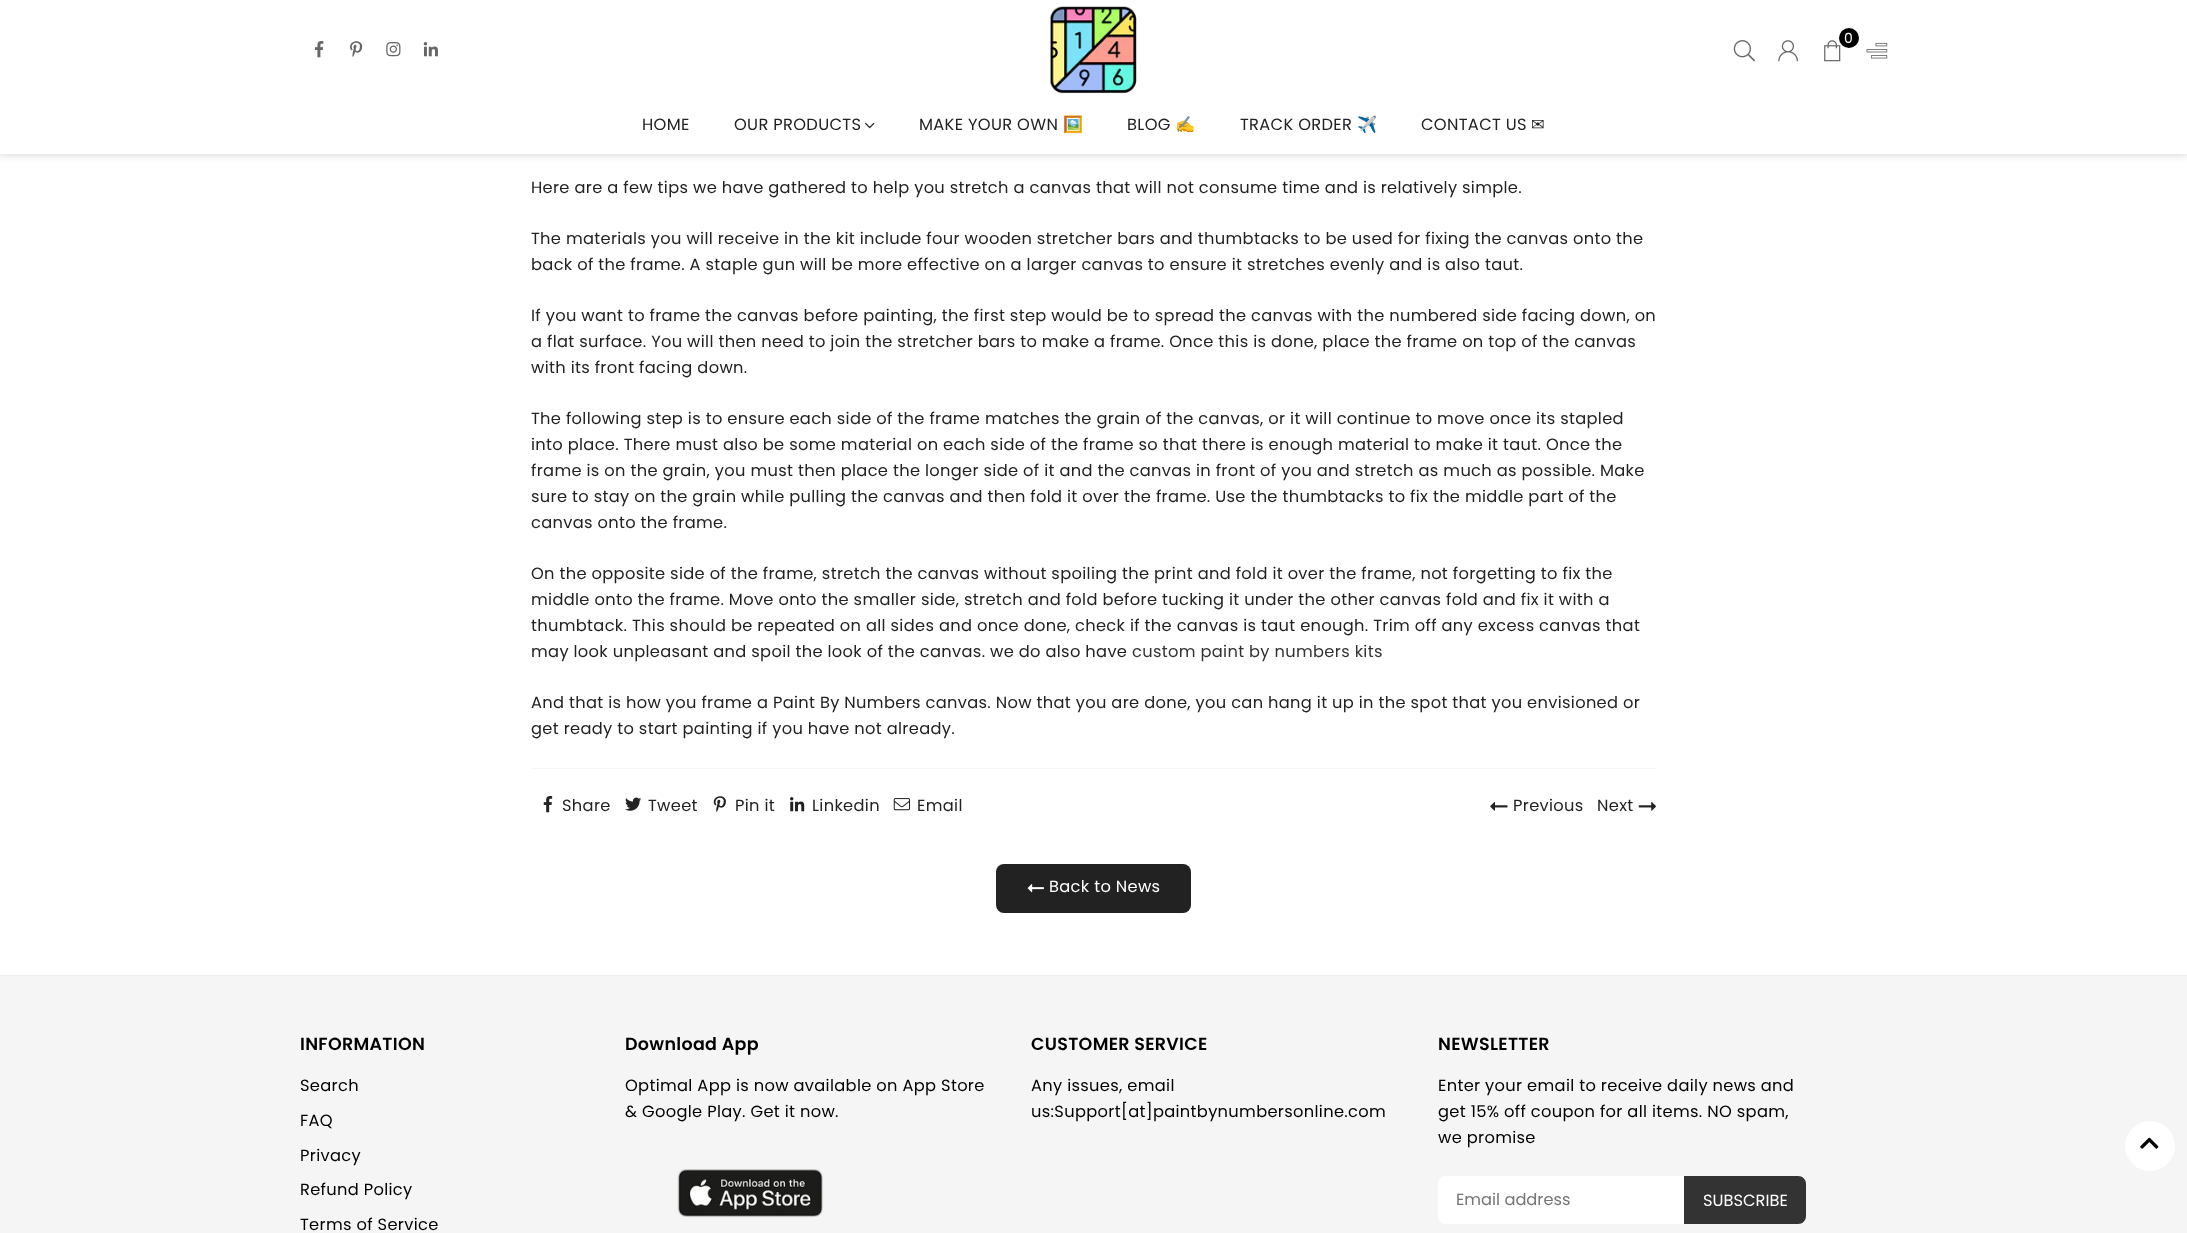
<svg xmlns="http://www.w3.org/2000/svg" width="2187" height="1233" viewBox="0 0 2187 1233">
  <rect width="100%" height="100%" fill="rgb(255,255,255)"/>
  <rect x="0" y="0" width="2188" height="154" fill="rgba(0,0,0,0.2)" filter="blur(4.5px)"/>
  <rect x="0" y="0" width="2187" height="154" fill="rgb(255,255,255)"/>
  <image x="1050" y="6" width="87" height="88" href="pic1.png"/>
  <image x="1824" y="40" width="17" height="22" href="pic2.png"/>
  <circle cx="1849" cy="38" r="10" fill="rgb(0,0,0)"/>
  <text x="1844" y="43" font-family="Poppins" font-size="14" letter-spacing="0.33" fill="rgb(255,255,255)">0</text>
  <image x="1733" y="40" width="22" height="22" href="pic3.png"/>
  <image x="1778" y="40" width="20" height="22" href="pic4.png"/>
  <image x="1866" y="42" width="22" height="17" href="pic5.png"/>
  <image x="315" y="41" width="9" height="17" href="pic6.png"/>
  <image x="350" y="41" width="13" height="16" href="pic7.png"/>
  <image x="386" y="42" width="15" height="15" href="pic8.png"/>
  <image x="423" y="42" width="15" height="15" href="pic9.png"/>
  <g font-family="Poppins" font-size="16.25" letter-spacing="0.33" fill="rgb(34,34,34)">
    <text x="642" y="130">HOME</text>
    <text x="734" y="130">OUR PRODUCTS</text>
  </g>
  <image x="865" y="122" width="10" height="7" href="pic10.png"/>
  <text x="919" y="130" font-family="Poppins" font-size="16.25" letter-spacing="0.33" fill="rgb(34,34,34)">MAKE YOUR OWN</text>
  <text x="1063" y="130" font-family="Noto Color Emoji" font-size="16.25" letter-spacing="0.33" fill="rgb(34,34,34)">🖼️</text>
  <text x="1127" y="130" font-family="Poppins" font-size="16.25" letter-spacing="0.33" fill="rgb(34,34,34)">BLOG</text>
  <text x="1175" y="130" font-family="Noto Color Emoji" font-size="16.25" letter-spacing="0.33" fill="rgb(34,34,34)">✍️</text>
  <text x="1240" y="130" font-family="Poppins" font-size="16.25" letter-spacing="0.33" fill="rgb(34,34,34)">TRACK ORDER</text>
  <text x="1357" y="130" font-family="Noto Color Emoji" font-size="16.25" letter-spacing="0.33" fill="rgb(34,34,34)">✈️</text>
  <text x="1421" y="130" font-family="Poppins" font-size="16.25" letter-spacing="0.33" fill="rgb(34,34,34)">CONTACT US</text>
  <text x="1531" y="130" font-family="DejaVu Sans" font-size="16.25" letter-spacing="0.33" fill="rgb(34,34,34)">✉︎</text>
  <g font-family="Poppins" font-size="16.25" letter-spacing="0.33" fill="rgb(34,34,34)">
    <text x="531" y="193">Here are a few tips we have gathered to help you stretch a canvas that will not consume time and is relatively simple.</text>
    <text>
      <tspan x="531" y="244">The materials you will receive in the kit include four wooden stretcher bars and thumbtacks to be used for fixing the canvas onto the</tspan>
      <tspan x="531" y="270">back of the frame. A staple gun will be more effective on a larger canvas to ensure it stretches evenly and is also taut.</tspan>
    </text>
    <text>
      <tspan x="531" y="321">If you want to frame the canvas before painting, the first step would be to spread the canvas with the numbered side facing down, on</tspan>
      <tspan x="531" y="347">a flat surface. You will then need to join the stretcher bars to make a frame. Once this is done, place the frame on top of the canvas</tspan>
      <tspan x="531" y="373">with its front facing down.</tspan>
    </text>
    <text>
      <tspan x="531" y="424">The following step is to ensure each side of the frame matches the grain of the canvas, or it will continue to move once its stapled</tspan>
      <tspan x="531" y="450">into place. There must also be some material on each side of the frame so that there is enough material to make it taut. Once the</tspan>
      <tspan x="531" y="476">frame is on the grain, you must then place the longer side of it and the canvas in front of you and stretch as much as possible. Make</tspan>
      <tspan x="531" y="502">sure to stay on the grain while pulling the canvas and then fold it over the frame. Use the thumbtacks to fix the middle part of the</tspan>
      <tspan x="531" y="528">canvas onto the frame.</tspan>
    </text>
    <text>
      <tspan x="531" y="579">On the opposite side of the frame, stretch the canvas without spoiling the print and fold it over the frame, not forgetting to fix the</tspan>
      <tspan x="531" y="605">middle onto the frame. Move onto the smaller side, stretch and fold before tucking it under the other canvas fold and fix it with a</tspan>
      <tspan x="531" y="631">thumbtack. This should be repeated on all sides and once done, check if the canvas is taut enough. Trim off any excess canvas that</tspan>
      <tspan x="531" y="657">may look unpleasant and spoil the look of the canvas. we do also have</tspan>
    </text>
  </g>
  <text x="1132" y="657" font-family="Poppins" font-size="16.25" letter-spacing="0.33" fill="rgb(51,51,51)">custom paint by numbers kits</text>
  <g font-family="Poppins" font-size="16.25" letter-spacing="0.33" fill="rgb(34,34,34)">
    <text>
      <tspan x="531" y="708">And that is how you frame a Paint By Numbers canvas. Now that you are done, you can hang it up in the spot that you envisioned or</tspan>
      <tspan x="531" y="734">get ready to start painting if you have not already.</tspan>
    </text>
  </g>
  <rect x="531" y="768" width="1125" height="1" fill="rgb(245,245,245)"/>
  <image x="543" y="796" width="10" height="17" href="pic11.png"/>
  <text x="562" y="811" font-family="Poppins" font-size="16.25" letter-spacing="0.33" fill="rgb(34,34,34)">Share</text>
  <image x="625" y="797" width="17" height="14" href="pic12.png"/>
  <text x="648" y="811" font-family="Poppins" font-size="16.25" letter-spacing="0.33" fill="rgb(34,34,34)">Tweet</text>
  <image x="713" y="796" width="13" height="16" href="pic13.png"/>
  <text x="735" y="811" font-family="Poppins" font-size="16.25" letter-spacing="0.33" fill="rgb(34,34,34)">Pin it</text>
  <image x="790" y="797" width="15" height="15" href="pic14.png"/>
  <text x="812" y="811" font-family="Poppins" font-size="16.25" letter-spacing="0.33" fill="rgb(34,34,34)">Linkedin</text>
  <image x="893" y="798" width="17" height="13" href="pic15.png"/>
  <text x="917" y="811" font-family="Poppins" font-size="16.25" letter-spacing="0.33" fill="rgb(34,34,34)">Email</text>
  <image x="1490" y="802" width="18" height="9" href="pic16.png"/>
  <g font-family="Poppins" font-size="16.25" letter-spacing="0.33" fill="rgb(34,34,34)">
    <text x="1513" y="811">Previous</text>
    <text x="1597" y="811">Next</text>
  </g>
  <image x="1638" y="802" width="18" height="9" href="pic17.png"/>
  <rect x="996" y="864" width="195" height="49" rx="8" fill="rgb(34,34,34)"/>
  <image x="1027" y="884" width="17" height="9" href="pic18.png"/>
  <text x="1049" y="892" font-family="Poppins" font-size="16.25" letter-spacing="0.33" fill="rgb(255,255,255)">Back to News</text>
  <rect x="0" y="976" width="2187" height="257" fill="rgb(245,245,245)"/>
  <rect x="0" y="975" width="2187" height="1" fill="rgb(238,238,238)"/>
  <text x="300" y="1050" font-family="Poppins" font-size="17.5" font-weight="600" letter-spacing="0.3" fill="rgb(0,0,0)">INFORMATION</text>
  <g font-family="Poppins" font-size="16.25" letter-spacing="0.33" fill="rgb(0,0,0)">
    <text x="300" y="1091">Search</text>
    <text x="300" y="1126">FAQ</text>
    <text x="300" y="1161">Privacy</text>
    <text x="300" y="1195">Refund Policy</text>
    <text x="300" y="1230">Terms of Service</text>
  </g>
  <text x="625" y="1050" font-family="Poppins" font-size="17.5" font-weight="600" letter-spacing="0.3" fill="rgb(0,0,0)">Download App</text>
  <g font-family="Poppins" font-size="16.25" letter-spacing="0.33" fill="rgb(0,0,0)">
    <text>
      <tspan x="625" y="1091">Optimal App is now available on App Store</tspan>
      <tspan x="625" y="1117">&amp; Google Play. Get it now.</tspan>
    </text>
  </g>
  <image x="677" y="1169" width="146" height="49" href="pic19.png"/>
  <text x="1031" y="1050" font-family="Poppins" font-size="17.5" font-weight="600" letter-spacing="0.3" fill="rgb(0,0,0)">CUSTOMER SERVICE</text>
  <g font-family="Poppins" font-size="16.25" letter-spacing="0.33" fill="rgb(0,0,0)">
    <text>
      <tspan x="1031" y="1091">Any issues, email</tspan>
      <tspan x="1031" y="1117">us:Support[at]paintbynumbersonline.com</tspan>
    </text>
  </g>
  <text x="1438" y="1050" font-family="Poppins" font-size="17.5" font-weight="600" letter-spacing="0.3" fill="rgb(0,0,0)">NEWSLETTER</text>
  <g font-family="Poppins" font-size="16.25" letter-spacing="0.33" fill="rgb(0,0,0)">
    <text>
      <tspan x="1438" y="1091">Enter your email to receive daily news and</tspan>
      <tspan x="1438" y="1117">get 15% off coupon for all items. NO spam,</tspan>
      <tspan x="1438" y="1143">we promise</tspan>
    </text>
  </g>
  <path d="M1446 1176H1684V1224H1446C1441.5 1224 1438 1220.5 1438 1216V1184C1438 1179.5 1441.5 1176 1446 1176Z" fill="rgb(255,255,255)"/>
  <text x="1456" y="1205" font-family="Poppins" font-size="16.25" fill="rgb(117,117,117)">Email address</text>
  <path d="M1684 1176H1798C1802.5 1176 1806 1179.5 1806 1184V1216C1806 1220.5 1802.5 1224 1798 1224H1684Z" fill="rgb(51,51,51)"/>
  <text x="1703" y="1206" font-family="Poppins" font-size="16.25" fill="rgb(255,255,255)">SUBSCRIBE</text>
  <circle cx="2150" cy="1146" r="25" fill="rgb(255,255,255)"/>
  <image x="2140" y="1137" width="19" height="12" href="pic20.png"/>
</svg>
